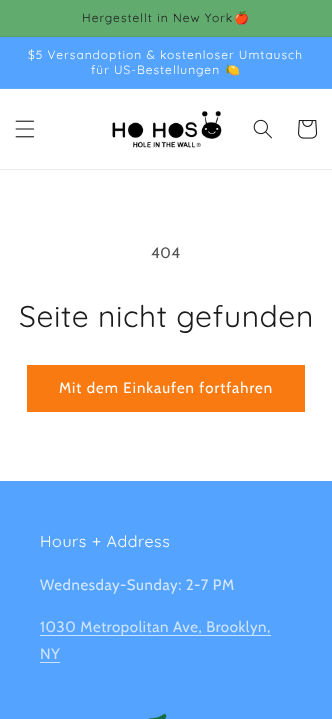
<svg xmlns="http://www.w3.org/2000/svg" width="332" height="719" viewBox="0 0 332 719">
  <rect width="100%" height="100%" fill="rgb(255,255,255)"/>
  <rect x="0" y="0" width="332" height="36" fill="rgb(98,171,111)"/>
  <rect x="0" y="36" width="332" height="1" fill="rgb(92,159,104)"/>
  <text x="82" y="22" font-family="Quicksand" font-size="12" letter-spacing="1" fill="rgb(28,26,26)">Hergestellt in New York</text>
  <text x="234" y="22" font-family="Noto Color Emoji" font-size="12" letter-spacing="1" fill="rgb(28,26,26)">🍎</text>
  <rect x="0" y="37" width="332" height="51" fill="rgb(84,163,255)"/>
  <rect x="0" y="88" width="332" height="1" fill="rgb(98,170,255)"/>
  <g font-family="Quicksand" font-size="12" letter-spacing="1" fill="rgb(255,255,255)">
    <text x="28" y="59">$5 Versandoption &amp; kostenloser Umtausch</text>
    <text x="91" y="74">für US-Bestellungen</text>
  </g>
  <text x="225" y="74" font-family="Noto Color Emoji" font-size="12" letter-spacing="1" fill="rgb(255,255,255)">🍋</text>
  <rect x="0" y="169" width="332" height="1" fill="rgb(237,237,237)"/>
  <image x="15" y="120" width="20" height="18" href="pic1.png"/>
  <image x="112" y="111" width="110" height="37" href="pic2.png"/>
  <image x="253" y="119" width="19" height="20" href="pic3.png"/>
  <image x="298" y="120" width="20" height="19" href="pic4.png"/>
  <text x="151" y="258" font-family="Cabin" font-size="15" letter-spacing="0.6" fill="rgb(85,83,83)">404</text>
  <text x="19" y="327" font-family="Quicksand" font-size="30" letter-spacing="0.6" fill="rgb(28,26,26)">Seite nicht gefunden</text>
  <rect x="27.5" y="365.5" width="277" height="46" fill="none" stroke="rgb(250,122,18)"/>
  <rect x="28" y="366" width="276" height="45" fill="rgb(250,122,18)"/>
  <text x="59" y="393" font-family="Cabin" font-size="15" letter-spacing="1" fill="rgb(255,255,255)">Mit dem Einkaufen fortfahren</text>
  <rect x="0" y="481" width="332" height="238" fill="rgb(84,163,255)"/>
  <text x="40" y="547" font-family="Quicksand" font-size="16" letter-spacing="0.6" fill="rgb(255,255,255)">Hours + Address</text>
  <text x="40" y="590" font-family="Cabin" font-size="15" letter-spacing="0.6" fill="rgb(212,232,255)">Wednesday-Sunday: 2-7 PM</text>
  <rect x="40" y="635" width="231" height="1" fill="rgb(204,227,255)"/>
  <g font-family="Cabin" font-size="15" letter-spacing="0.6" fill="rgb(204,227,255)">
    <text>
      <tspan x="40" y="632">1030 Metropolitan Ave, Brooklyn,</tspan>
      <tspan x="40" y="659">NY</tspan>
    </text>
  </g>
  <rect x="40" y="662" width="20" height="1" fill="rgb(204,227,255)"/>
  <image x="148" y="713" width="19" height="6" href="pic5.png"/>
</svg>
